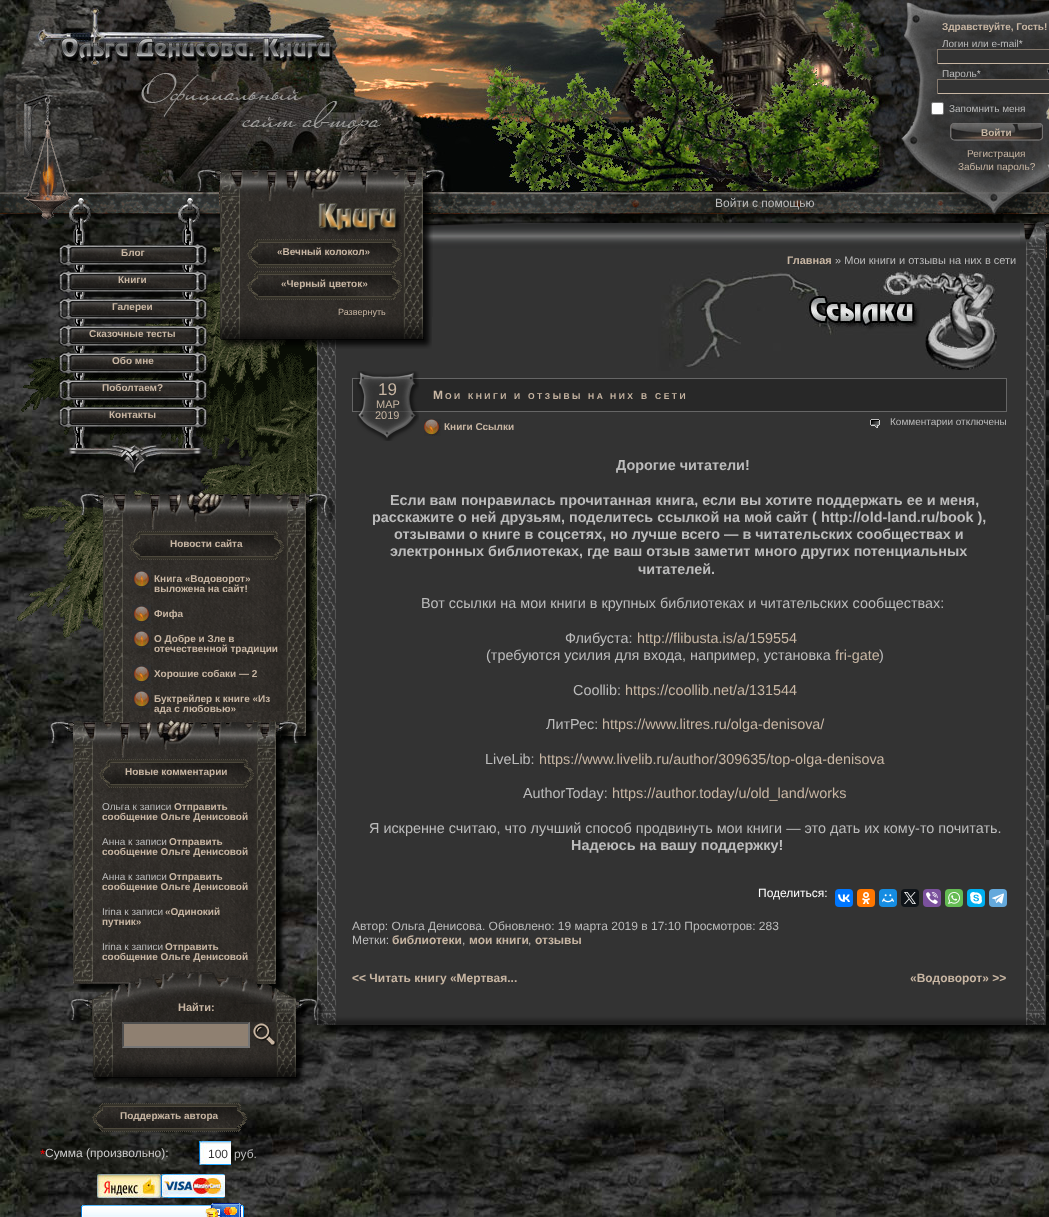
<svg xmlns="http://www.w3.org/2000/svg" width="1049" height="1217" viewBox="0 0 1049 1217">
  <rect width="100%" height="100%" fill="rgb(255,255,255)"/>
  <image x="0" y="0" width="1049" height="1217" href="pic1.png"/>
  <image x="0" y="0" width="37" height="192" href="pic2.png"/>
  <image x="37" y="0" width="1012" height="192" href="pic3.png"/>
  <image x="423" y="221" width="626" height="44" href="pic36.png"/>
  <image x="0" y="192" width="1049" height="29" href="pic51.png"/>
  <image x="897" y="0" width="152" height="222" href="pic13.png"/>
  <text x="942" y="30" font-family="Liberation Sans" font-size="10" font-weight="bold" fill="rgb(200,182,163)">Здравствуйте, Гость!</text>
  <image x="24" y="94" width="47" height="126" href="pic4.png"/>
  <image x="1047" y="163" width="2" height="8" href="pic5.png"/>
  <text x="715" y="207" font-family="Liberation Sans" font-size="12" fill="rgb(188,188,188)">Войти с помощью</text>
  <image x="197" y="167" width="254" height="44" href="pic6.png"/>
  <image x="17" y="247" width="300" height="434" href="pic12.png"/>
  <image x="317" y="255" width="732" height="747" href="pic37.png"/>
  <image x="220" y="201" width="213" height="116" href="pic7.png"/>
  <image x="318" y="203" width="83" height="32" href="pic8.png"/>
  <image x="247" y="239" width="155" height="29" href="pic9.png"/>
  <text x="277" y="255" font-family="Liberation Sans" font-size="10" font-weight="bold" fill="rgb(200,182,163)">«Вечный колокол»</text>
  <image x="247" y="271" width="155" height="29" href="pic10.png"/>
  <text x="281" y="287" font-family="Liberation Sans" font-size="10" font-weight="bold" fill="rgb(200,182,163)">«Черный цветок»</text>
  <text x="338" y="315" font-family="Liberation Sans" font-size="9" fill="rgb(200,182,163)">Развернуть</text>
  <image x="220" y="317" width="212" height="32" href="pic11.png"/>
  <text x="942" y="47" font-family="Liberation Sans" font-size="10" fill="rgb(188,188,188)">Логин или e-mail*</text>
  <rect x="938" y="50" width="111" height="13" fill="rgb(51,51,51)"/>
  <rect x="937" y="49" width="112" height="1" fill="rgb(133,121,109)"/>
  <rect x="937" y="63" width="112" height="1" fill="rgb(200,182,163)"/>
  <rect x="937" y="49" width="1" height="15" fill="rgb(133,121,109)"/>
  <text x="942" y="77" font-family="Liberation Sans" font-size="10" fill="rgb(188,188,188)">Пароль*</text>
  <rect x="938" y="80" width="111" height="13" fill="rgb(51,51,51)"/>
  <rect x="937" y="79" width="112" height="1" fill="rgb(133,121,109)"/>
  <rect x="937" y="93" width="112" height="1" fill="rgb(200,182,163)"/>
  <rect x="937" y="79" width="1" height="15" fill="rgb(133,121,109)"/>
  <rect x="931.5" y="102.5" width="12" height="12" rx="1.5" fill="rgb(255,255,255)" stroke="rgb(118,118,118)"/>
  <text x="949" y="112" font-family="Liberation Sans" font-size="10" fill="rgb(188,188,188)">Запомнить меня</text>
  <image x="950" y="123" width="93" height="18" href="pic14.png"/>
  <text x="981" y="136" font-family="Liberation Sans" font-size="10" font-weight="bold" fill="rgb(200,182,163)">Войти</text>
  <g font-family="Liberation Sans" font-size="10" fill="rgb(200,182,163)">
    <text x="967" y="157">Регистрация</text>
    <text x="958" y="170">Забыли пароль?</text>
  </g>
  <image x="66" y="197" width="148" height="281" href="pic15.png"/>
  <image x="58" y="243" width="157" height="27" href="pic16.png"/>
  <text x="121" y="256" font-family="Liberation Sans" font-size="10" font-weight="bold" fill="rgb(200,182,163)">Блог</text>
  <image x="58" y="270" width="157" height="27" href="pic17.png"/>
  <text x="118" y="283" font-family="Liberation Sans" font-size="10" font-weight="bold" fill="rgb(200,182,163)">Книги</text>
  <image x="58" y="297" width="157" height="27" href="pic18.png"/>
  <text x="112" y="310" font-family="Liberation Sans" font-size="10" font-weight="bold" fill="rgb(200,182,163)">Галереи</text>
  <image x="58" y="324" width="157" height="27" href="pic19.png"/>
  <text x="89" y="337" font-family="Liberation Sans" font-size="10" font-weight="bold" fill="rgb(200,182,163)">Сказочные тесты</text>
  <image x="58" y="351" width="157" height="27" href="pic20.png"/>
  <text x="112" y="364" font-family="Liberation Sans" font-size="10" font-weight="bold" fill="rgb(200,182,163)">Обо мне</text>
  <image x="58" y="378" width="156" height="27" href="pic21.png"/>
  <text x="102" y="391" font-family="Liberation Sans" font-size="10" font-weight="bold" fill="rgb(200,182,163)">Поболтаем?</text>
  <image x="58" y="405" width="157" height="27" href="pic22.png"/>
  <text x="109" y="418" font-family="Liberation Sans" font-size="10" font-weight="bold" fill="rgb(200,182,163)">Контакты</text>
  <image x="79" y="491" width="256" height="253" href="pic23.png"/>
  <image x="129" y="531" width="155" height="29" href="pic24.png"/>
  <text x="170" y="547" font-family="Liberation Sans" font-size="10" font-weight="bold" fill="rgb(200,182,163)">Новости сайта</text>
  <image x="132" y="570" width="19" height="18" href="pic25.png"/>
  <g font-family="Liberation Sans" font-size="10" font-weight="bold" fill="rgb(200,182,163)">
    <text>
      <tspan x="154" y="582">Книга «Водоворот»</tspan>
      <tspan x="154" y="592">выложена на сайт!</tspan>
    </text>
  </g>
  <image x="132" y="605" width="19" height="18" href="pic26.png"/>
  <text x="154" y="617" font-family="Liberation Sans" font-size="10" font-weight="bold" fill="rgb(200,182,163)">Фифа</text>
  <image x="132" y="630" width="19" height="18" href="pic25.png"/>
  <g font-family="Liberation Sans" font-size="10" font-weight="bold" fill="rgb(200,182,163)">
    <text>
      <tspan x="154" y="642">О Добре и Зле в</tspan>
      <tspan x="154" y="652">отечественной традиции</tspan>
    </text>
  </g>
  <image x="132" y="665" width="19" height="18" href="pic26.png"/>
  <text x="154" y="677" font-family="Liberation Sans" font-size="10" font-weight="bold" fill="rgb(200,182,163)">Хорошие собаки — 2</text>
  <image x="132" y="690" width="19" height="18" href="pic27.png"/>
  <g font-family="Liberation Sans" font-size="10" font-weight="bold" fill="rgb(200,182,163)">
    <text>
      <tspan x="154" y="702">Буктрейлер к книге «Из</tspan>
      <tspan x="154" y="712">ада с любовью»</tspan>
    </text>
  </g>
  <image x="49" y="719" width="256" height="273" href="pic28.png"/>
  <image x="99" y="759" width="155" height="29" href="pic24.png"/>
  <text x="125" y="775" font-family="Liberation Sans" font-size="10" font-weight="bold" fill="rgb(200,182,163)">Новые комментарии</text>
  <text x="102" y="810" font-family="Liberation Sans" font-size="10" fill="rgb(188,188,188)">Ольга к записи</text>
  <g font-family="Liberation Sans" font-size="10" font-weight="bold" fill="rgb(200,182,163)">
    <text x="174" y="810">Отправить</text>
    <text x="102" y="820">сообщение Ольге Денисовой</text>
  </g>
  <text x="102" y="845" font-family="Liberation Sans" font-size="10" fill="rgb(188,188,188)">Анна к записи</text>
  <g font-family="Liberation Sans" font-size="10" font-weight="bold" fill="rgb(200,182,163)">
    <text x="169" y="845">Отправить</text>
    <text x="102" y="855">сообщение Ольге Денисовой</text>
  </g>
  <text x="102" y="880" font-family="Liberation Sans" font-size="10" fill="rgb(188,188,188)">Анна к записи</text>
  <g font-family="Liberation Sans" font-size="10" font-weight="bold" fill="rgb(200,182,163)">
    <text x="169" y="880">Отправить</text>
    <text x="102" y="890">сообщение Ольге Денисовой</text>
  </g>
  <text x="102" y="915" font-family="Liberation Sans" font-size="10" fill="rgb(188,188,188)">Irina к записи</text>
  <g font-family="Liberation Sans" font-size="10" font-weight="bold" fill="rgb(200,182,163)">
    <text x="165" y="915">«Одинокий</text>
    <text x="102" y="925">путник»</text>
  </g>
  <text x="102" y="950" font-family="Liberation Sans" font-size="10" fill="rgb(188,188,188)">Irina к записи</text>
  <g font-family="Liberation Sans" font-size="10" font-weight="bold" fill="rgb(200,182,163)">
    <text x="165" y="950">Отправить</text>
    <text x="102" y="960">сообщение Ольге Денисовой</text>
  </g>
  <image x="317" y="1002" width="732" height="35" href="pic50.png"/>
  <image x="70" y="972" width="254" height="115" href="pic29.png"/>
  <text x="178" y="1011" font-family="Liberation Sans" font-size="11" font-weight="bold" fill="rgb(200,182,163)">Найти:</text>
  <rect x="122" y="1022" width="128" height="26" fill="rgb(143,128,113)"/>
  <path d="M122 1022H250L248 1024H124Z" fill="rgb(79,79,79)"/>
  <path d="M250 1022V1048L248 1046V1024Z" fill="rgb(118,118,118)"/>
  <path d="M250 1048H122L124 1046H248Z" fill="rgb(118,118,118)"/>
  <path d="M122 1048V1022L124 1024V1046Z" fill="rgb(79,79,79)"/>
  <image x="253" y="1023" width="24" height="24" href="pic30.png"/>
  <image x="92" y="1103" width="155" height="29" href="pic31.png"/>
  <text x="120" y="1119" font-family="Liberation Sans" font-size="10" font-weight="bold" fill="rgb(200,182,163)">Поддержать автора</text>
  <text x="40" y="1159" font-family="Liberation Sans" font-size="14" fill="rgb(255,0,0)">*</text>
  <text x="45" y="1157" font-family="Liberation Sans" font-size="12" fill="rgb(204,204,204)">Сумма (произвольно):</text>
  <image x="199" y="1141" width="32" height="24" href="pic32.png"/>
  <text x="208" y="1158" font-family="Liberation Sans" font-size="12" fill="rgb(51,51,51)">100</text>
  <text x="234" y="1158" font-family="Liberation Sans" font-size="12" fill="rgb(188,188,188)">руб.</text>
  <image x="97" y="1174" width="64" height="24" href="pic33.png"/>
  <image x="161" y="1174" width="64" height="24" href="pic34.png"/>
  <image x="81" y="1203" width="163" height="14" href="pic35.png"/>
  <text x="787" y="264" font-family="Liberation Sans" font-size="11" font-weight="bold" fill="rgb(200,182,163)">Главная</text>
  <text x="835" y="264" font-family="Liberation Sans" font-size="11" fill="rgb(188,188,188)">» Мои книги и отзывы на них в сети</text>
  <image x="517" y="271" width="500" height="100" href="pic38.png"/>
  <rect x="352.5" y="378.5" width="654" height="33" fill="rgb(40,40,40)" stroke="rgb(102,102,102)"/>
  <image x="357" y="371" width="62" height="70" href="pic39.png"/>
  <text x="378" y="395" font-family="Liberation Sans" font-size="17" fill="rgb(200,182,163)">19</text>
  <g font-family="Liberation Sans" font-size="11" fill="rgb(200,182,163)">
    <text x="376" y="408">МАР</text>
    <text x="375" y="419">2019</text>
  </g>
  <text x="433" y="399" font-family="Liberation Sans" font-size="12" font-weight="bold" letter-spacing="2.5" fill="rgb(200,182,163)">М</text>
  <g font-family="Liberation Sans" font-size="8.5" font-weight="bold" letter-spacing="2.5" fill="rgb(200,182,163)">
    <text x="445" y="399">ОИ</text>
    <text x="468" y="399">КНИГИ</text>
    <text x="514" y="399">И</text>
    <text x="528" y="399">ОТЗЫВЫ</text>
    <text x="588" y="399">НА</text>
    <text x="610" y="399">НИХ</text>
    <text x="641" y="399">В</text>
    <text x="655" y="399">СЕТИ</text>
  </g>
  <image x="424" y="419" width="17" height="17" href="pic40.png"/>
  <text x="444" y="430" font-family="Liberation Sans" font-size="10" font-weight="bold" fill="rgb(200,182,163)">Книги Ссылки</text>
  <image x="870" y="419" width="10" height="9" href="pic41.png"/>
  <text x="890" y="425" font-family="Liberation Sans" font-size="10" fill="rgb(188,188,188)">Комментарии отключены</text>
  <g font-family="Liberation Sans" font-size="14.4" font-weight="bold" fill="rgb(188,188,188)">
    <text x="616" y="470">Дорогие читатели!</text>
    <text x="390" y="505">Если вам понравилась прочитанная книга, если вы хотите поддержать ее и меня,</text>
    <text x="372" y="522">расскажите о ней друзьям, поделитесь ссылкой на мой сайт ( http://old-land.ru/book ),</text>
    <text x="394" y="539">отзывами о книге в соцсетях, но лучше всего — в читательских сообществах и</text>
    <text x="390" y="556">электронных библиотеках, где ваш отзыв заметит много других потенциальных</text>
    <text x="638" y="574">читателей.</text>
  </g>
  <g font-family="Liberation Sans" font-size="14.4" fill="rgb(188,188,188)">
    <text x="421" y="608">Вот ссылки на мои книги в крупных библиотеках и читательских сообществах:</text>
    <text x="565" y="643">Флибуста:</text>
  </g>
  <text x="637" y="643" font-family="Liberation Sans" font-size="14.4" fill="rgb(200,182,163)">http://flibusta.is/a/159554</text>
  <text x="486" y="660" font-family="Liberation Sans" font-size="14.4" fill="rgb(188,188,188)">(требуются усилия для входа, например, установка</text>
  <text x="835" y="660" font-family="Liberation Sans" font-size="14.4" fill="rgb(200,182,163)">fri-gate</text>
  <g font-family="Liberation Sans" font-size="14.4" fill="rgb(188,188,188)">
    <text x="879" y="660">)</text>
    <text x="573" y="695">Coollib:</text>
  </g>
  <text x="625" y="695" font-family="Liberation Sans" font-size="14.4" fill="rgb(200,182,163)">https://coollib.net/a/131544</text>
  <text x="546" y="729" font-family="Liberation Sans" font-size="14.4" fill="rgb(188,188,188)">ЛитРес:</text>
  <text x="602" y="729" font-family="Liberation Sans" font-size="14.4" fill="rgb(200,182,163)">https://www.litres.ru/olga-denisova/</text>
  <text x="485" y="764" font-family="Liberation Sans" font-size="14.4" fill="rgb(188,188,188)">LiveLib:</text>
  <text x="539" y="764" font-family="Liberation Sans" font-size="14.4" fill="rgb(200,182,163)">https://www.livelib.ru/author/309635/top-olga-denisova</text>
  <text x="523" y="798" font-family="Liberation Sans" font-size="14.4" fill="rgb(188,188,188)">AuthorToday:</text>
  <text x="612" y="798" font-family="Liberation Sans" font-size="14.4" fill="rgb(200,182,163)">https://author.today/u/old_land/works</text>
  <text x="369" y="833" font-family="Liberation Sans" font-size="14.4" fill="rgb(188,188,188)">Я искренне считаю, что лучший способ продвинуть мои книги — это дать их кому-то почитать.</text>
  <text x="571" y="850" font-family="Liberation Sans" font-size="14.4" font-weight="bold" fill="rgb(188,188,188)">Надеюсь на вашу поддержку!</text>
  <text x="758" y="897" font-family="Liberation Sans" font-size="12" fill="rgb(255,255,255)">Поделиться:</text>
  <rect x="835" y="889" width="18" height="18" rx="4" fill="rgb(0,119,255)"/>
  <image x="838" y="894" width="12" height="8" href="pic42.png"/>
  <rect x="857" y="889" width="18" height="18" rx="4" fill="rgb(255,119,0)"/>
  <image x="862" y="892" width="8" height="12" href="pic43.png"/>
  <rect x="879" y="889" width="18" height="18" rx="4" fill="rgb(22,141,226)"/>
  <image x="882" y="894" width="12" height="9" href="pic44.png"/>
  <rect x="901" y="889" width="18" height="18" rx="4" fill="rgb(15,20,25)"/>
  <image x="904" y="892" width="12" height="12" href="pic45.png"/>
  <rect x="923" y="889" width="18" height="18" rx="4" fill="rgb(123,81,157)"/>
  <image x="926" y="892" width="12" height="12" href="pic46.png"/>
  <rect x="945" y="889" width="18" height="18" rx="4" fill="rgb(101,188,84)"/>
  <image x="948" y="892" width="12" height="12" href="pic47.png"/>
  <rect x="967" y="889" width="18" height="18" rx="4" fill="rgb(0,175,240)"/>
  <image x="970" y="892" width="12" height="12" href="pic48.png"/>
  <rect x="989" y="889" width="18" height="18" rx="4" fill="rgb(100,169,220)"/>
  <image x="992" y="893" width="12" height="11" href="pic49.png"/>
  <g font-family="Liberation Sans" font-size="12" fill="rgb(188,188,188)">
    <text>
      <tspan x="352" y="930">Автор: Ольга Денисова. Обновлено: 19 марта 2019 в 17:10 Просмотров: 283</tspan>
      <tspan x="352" y="944">Метки:</tspan>
    </text>
  </g>
  <text x="392" y="944" font-family="Liberation Sans" font-size="12" font-weight="bold" fill="rgb(200,182,163)">библиотеки</text>
  <text x="462" y="944" font-family="Liberation Sans" font-size="12" fill="rgb(188,188,188)">,</text>
  <text x="469" y="944" font-family="Liberation Sans" font-size="12" font-weight="bold" fill="rgb(200,182,163)">мои книги</text>
  <text x="528" y="944" font-family="Liberation Sans" font-size="12" fill="rgb(188,188,188)">,</text>
  <g font-family="Liberation Sans" font-size="12" font-weight="bold" fill="rgb(200,182,163)">
    <text x="535" y="944">отзывы</text>
    <text x="352" y="982">&lt;&lt; Читать книгу «Мертвая...</text>
    <text x="910" y="982">«Водоворот» &gt;&gt;</text>
  </g>
</svg>
